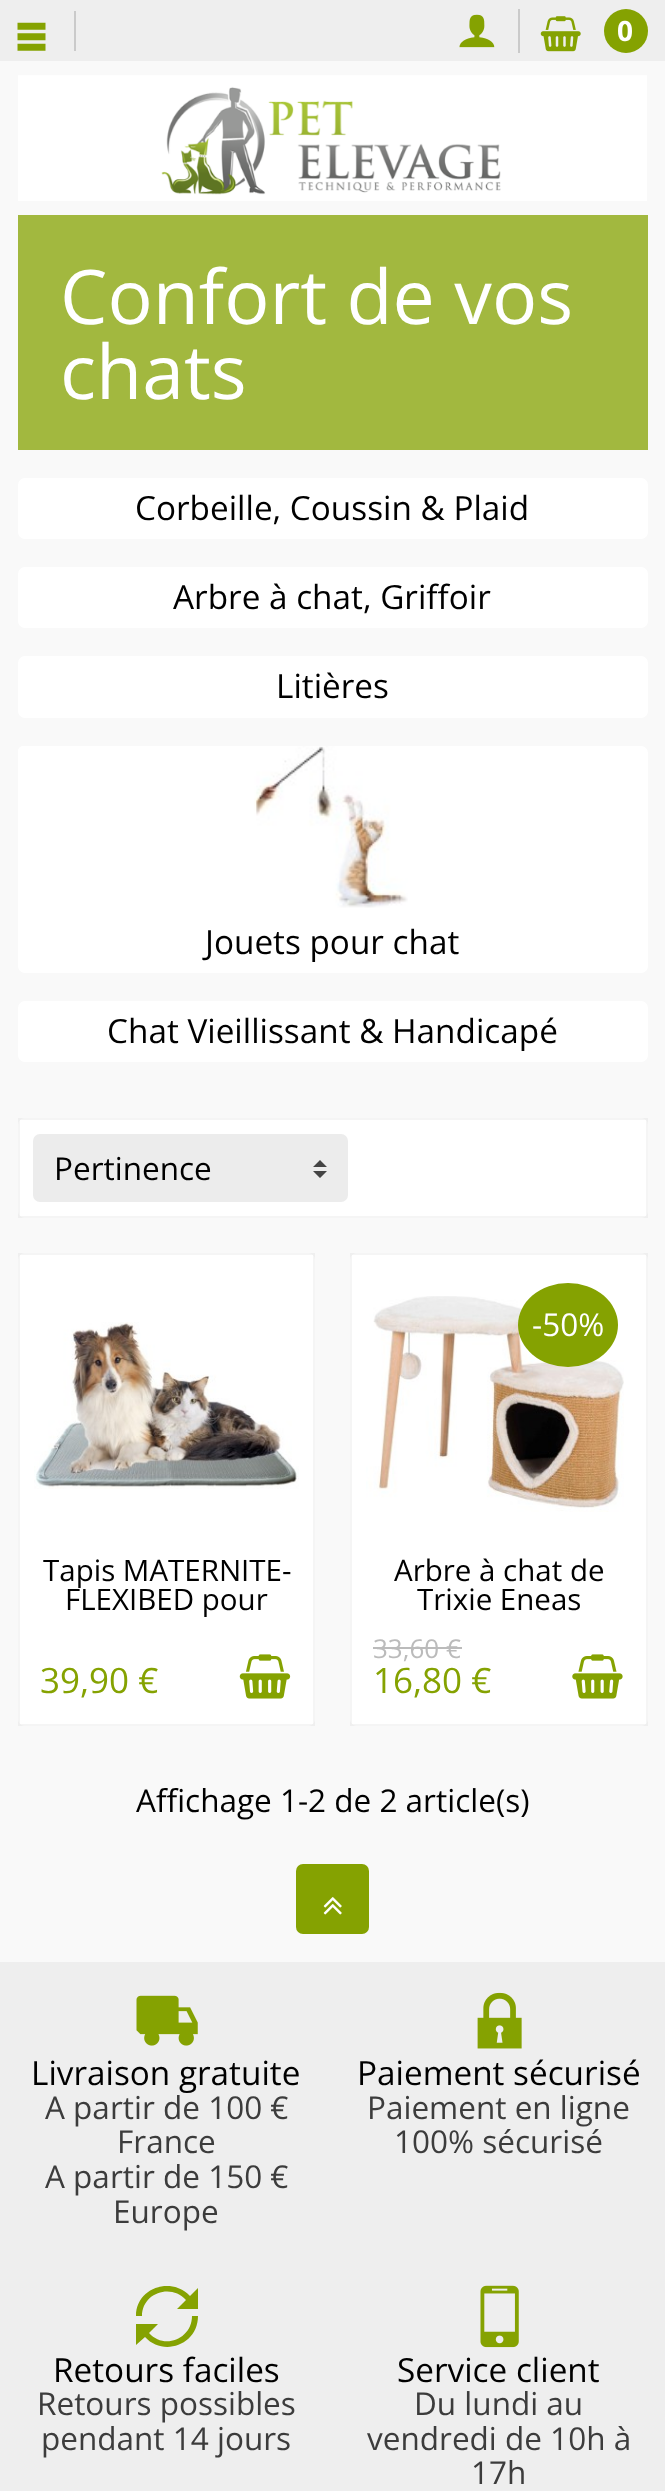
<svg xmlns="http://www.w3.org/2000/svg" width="665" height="2491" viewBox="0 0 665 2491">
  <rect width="100%" height="100%" fill="rgb(249,249,249)"/>
  <rect x="0" y="0" width="665" height="61" fill="rgb(238,238,238)"/>
  <rect x="74" y="11" width="2" height="40" fill="rgb(202,202,202)"/>
  <image x="17" y="22" width="29" height="29" href="pic1.png"/>
  <image x="459" y="14" width="36" height="34" href="pic2.png"/>
  <rect x="518" y="9" width="2" height="44" fill="rgb(202,202,202)"/>
  <image x="540" y="16" width="41" height="36" href="pic3.png"/>
  <circle cx="626" cy="31" r="22" fill="rgb(133,162,1)"/>
  <text x="617" y="41" font-family="Open Sans" font-size="28" font-weight="bold" fill="rgb(255,255,255)">0</text>
  <image x="18" y="75" width="629" height="126" href="pic4.png"/>
  <rect x="18" y="215" width="630" height="235" fill="rgb(162,184,63)"/>
  <g font-family="Open Sans" font-size="75.25" fill="rgb(255,255,255)">
    <text>
      <tspan x="60" y="324">Confort de vos</tspan>
      <tspan x="60" y="399">chats</tspan>
    </text>
  </g>
  <rect x="18" y="478" width="630" height="61" rx="7" fill="rgb(255,255,255)"/>
  <text x="135" y="520" font-family="Open Sans" font-size="33.3" fill="rgb(0,0,0)">Corbeille, Coussin &amp; Plaid</text>
  <rect x="18" y="567" width="630" height="61" rx="7" fill="rgb(255,255,255)"/>
  <text x="173" y="609" font-family="Open Sans" font-size="33.3" fill="rgb(0,0,0)">Arbre à chat, Griffoir</text>
  <rect x="18" y="656" width="630" height="62" rx="7" fill="rgb(255,255,255)"/>
  <text x="276" y="698" font-family="Open Sans" font-size="33.3" fill="rgb(0,0,0)">Litières</text>
  <rect x="18" y="746" width="630" height="227" rx="7" fill="rgb(255,255,255)"/>
  <image x="18" y="746" width="390" height="162" href="pic5.png"/>
  <text x="205" y="954" font-family="Open Sans" font-size="33.3" fill="rgb(0,0,0)">Jouets pour chat</text>
  <rect x="18" y="1001" width="630" height="61" rx="7" fill="rgb(255,255,255)"/>
  <text x="107" y="1043" font-family="Open Sans" font-size="33.3" fill="rgb(0,0,0)">Chat Vieillissant &amp; Handicapé</text>
  <rect x="18" y="1118" width="630" height="100" rx="7" fill="rgb(255,255,255)"/>
  <rect x="19" y="1119" width="628" height="98" fill="none" stroke="rgba(0,0,0,0.04)" stroke-width="2"/>
  <rect x="33" y="1134" width="315" height="68" rx="7" fill="rgb(236,236,236)"/>
  <path d="M320 1160L313 1167H327ZM320 1178L313 1171H327Z" fill="rgb(68,68,68)"/>
  <text x="54" y="1180" font-family="Open Sans" font-size="31.5" fill="rgb(0,0,0)">Pertinence</text>
  <rect x="18" y="1253" width="297" height="473" rx="7" fill="rgb(255,255,255)"/>
  <rect x="19" y="1254" width="295" height="471" fill="none" stroke="rgba(0,0,0,0.04)" stroke-width="2"/>
  <image x="34" y="1322" width="265" height="167" href="pic6.png"/>
  <g font-family="Open Sans" font-size="29.5" fill="rgb(0,0,0)">
    <text x="43" y="1581">Tapis MATERNITE-</text>
    <text x="65" y="1610">FLEXIBED pour</text>
  </g>
  <text x="40" y="1693" font-family="Open Sans" font-size="35" fill="rgb(133,162,1)">39,90 €</text>
  <image x="239" y="1654" width="52" height="45" href="pic7.png"/>
  <rect x="350" y="1253" width="298" height="473" rx="7" fill="rgb(255,255,255)"/>
  <rect x="351" y="1254" width="296" height="471" fill="none" stroke="rgba(0,0,0,0.04)" stroke-width="2"/>
  <image x="366" y="1296" width="258" height="216" href="pic8.png"/>
  <ellipse cx="568" cy="1325" rx="50" ry="42" fill="rgb(133,162,1)"/>
  <text x="532" y="1336" font-family="Open Sans" font-size="31.5" fill="rgb(255,255,255)">-50%</text>
  <g font-family="Open Sans" font-size="29.5" fill="rgb(0,0,0)">
    <text x="394" y="1581">Arbre à chat de</text>
    <text x="417" y="1610">Trixie Eneas</text>
  </g>
  <text x="373" y="1658" font-family="Open Sans" font-size="26" fill="rgb(187,187,187)">33,60 €</text>
  <rect x="373" y="1647" width="89" height="2" fill="rgb(187,187,187)"/>
  <text x="373" y="1693" font-family="Open Sans" font-size="35" fill="rgb(133,162,1)">16,80 €</text>
  <image x="572" y="1654" width="51" height="45" href="pic9.png"/>
  <text x="136" y="1812" font-family="Open Sans" font-size="31.5" fill="rgb(0,0,0)">Affichage 1-2 de 2 article(s)</text>
  <rect x="296" y="1864" width="73" height="70" rx="7" fill="rgb(133,162,1)"/>
  <image x="323" y="1897" width="19" height="18" href="pic10.png"/>
  <rect x="0" y="1962" width="665" height="529" fill="rgb(238,238,238)"/>
  <image x="136" y="1995" width="62" height="51" href="pic11.png"/>
  <text x="31" y="2085" font-family="Open Sans" font-size="33.3" fill="rgb(0,0,0)">Livraison gratuite</text>
  <g font-family="Open Sans" font-size="31.5" fill="rgb(60,60,60)">
    <text x="45" y="2119">A partir de 100 €</text>
    <text x="117" y="2153">France</text>
    <text x="45" y="2188">A partir de 150 €</text>
    <text x="113" y="2223">Europe</text>
  </g>
  <image x="477" y="1992" width="45" height="57" href="pic12.png"/>
  <text x="357" y="2085" font-family="Open Sans" font-size="33.3" fill="rgb(0,0,0)">Paiement sécurisé</text>
  <g font-family="Open Sans" font-size="31.5" fill="rgb(60,60,60)">
    <text x="367" y="2119">Paiement en ligne</text>
    <text x="394" y="2153">100% sécurisé</text>
  </g>
  <path d="M190 2296C171 2276 136 2288 136 2316H142C142 2293 171 2283 186 2300L177 2309H198V2288ZM192 2316C192 2339 164 2350 149 2333L158 2324H136V2345L145 2337C163 2357 198 2345 198 2316Z" fill="rgb(133,162,1)"/>
  <text x="53" y="2382" font-family="Open Sans" font-size="33.3" fill="rgb(0,0,0)">Retours faciles</text>
  <g font-family="Open Sans" font-size="31.5" fill="rgb(60,60,60)">
    <text x="37" y="2415">Retours possibles</text>
    <text x="41" y="2450">pendant 14 jours</text>
  </g>
  <image x="480" y="2285" width="39" height="63" href="pic13.png"/>
  <text x="397" y="2382" font-family="Open Sans" font-size="33.3" fill="rgb(0,0,0)">Service client</text>
  <g font-family="Open Sans" font-size="31.5" fill="rgb(60,60,60)">
    <text x="414" y="2415">Du lundi au</text>
    <text x="367" y="2450">vendredi de 10h à</text>
    <text x="471" y="2484">17h</text>
  </g>
</svg>
